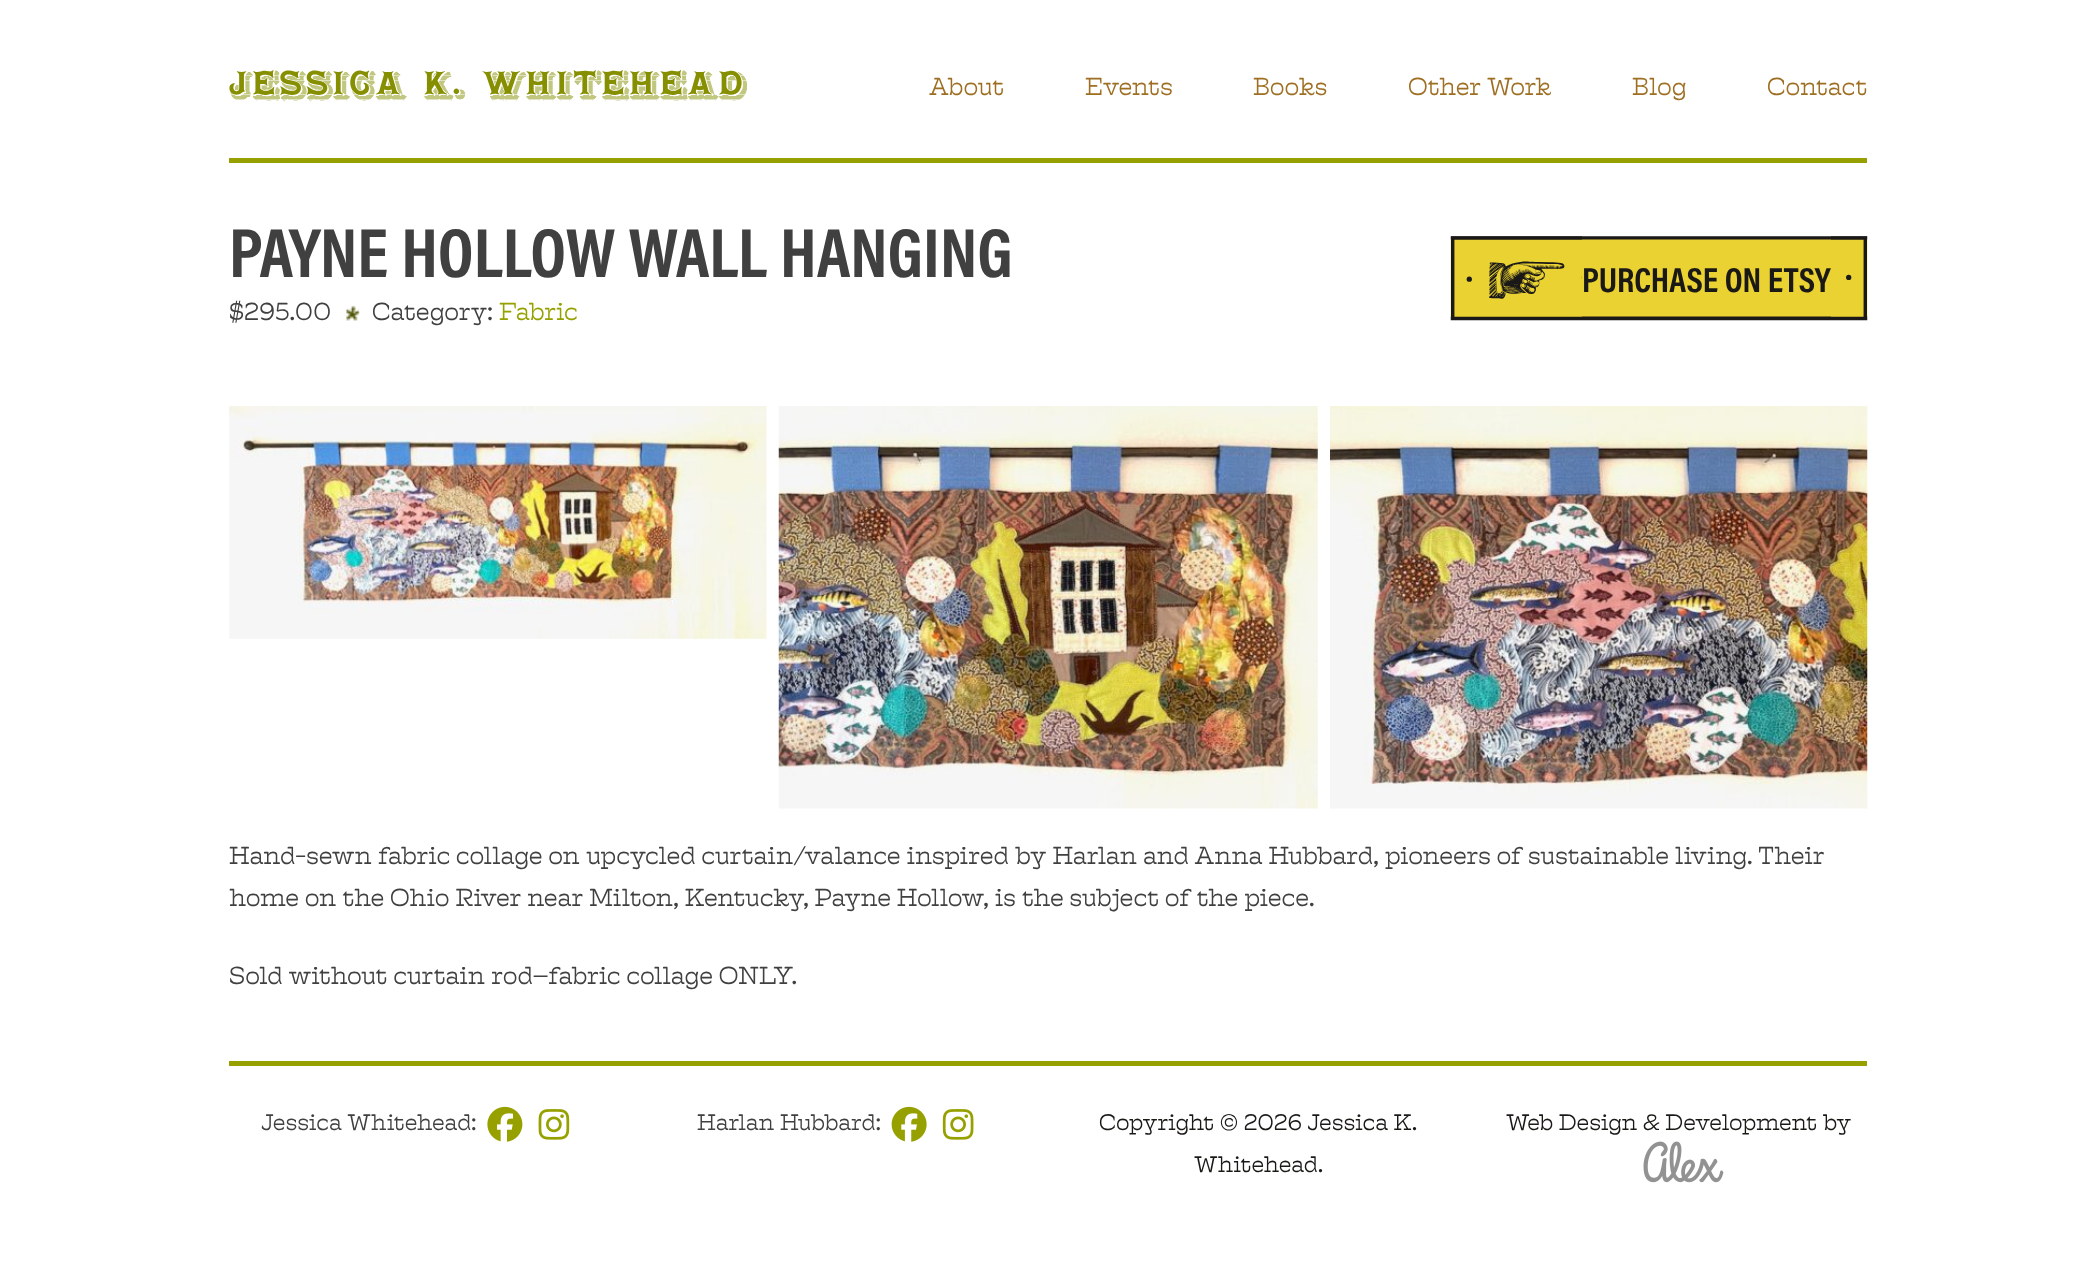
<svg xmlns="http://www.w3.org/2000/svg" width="2096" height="1278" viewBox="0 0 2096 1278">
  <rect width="100%" height="100%" fill="rgb(255,255,255)"/>
  <image x="229" y="70" width="518" height="32" href="pic1.png"/>
  <g font-family="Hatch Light" font-size="24.5" font-weight="300" fill="rgb(158,111,35)">
    <text x="929" y="95">About</text>
    <text x="1085" y="95">Events</text>
    <text x="1253" y="95">Books</text>
    <text x="1408" y="95">Other Work</text>
    <text x="1632" y="95">Blog</text>
    <text x="1767" y="95">Contact</text>
  </g>
  <rect x="229" y="158" width="1638" height="5" fill="rgb(150,161,0)"/>
  <text x="229" y="277" font-family="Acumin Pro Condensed" font-size="70" font-weight="bold" fill="rgb(64,64,64)">PAYNE HOLLOW WALL HANGING</text>
  <image x="1450" y="236" width="418" height="85" href="pic2.png"/>
  <image x="1451" y="236" width="131" height="81" href="pic3.png"/>
  <text x="1582" y="292" font-family="Acumin Pro Condensed" font-size="35" font-weight="bold" fill="rgb(26,25,22)">PURCHASE ON ETSY</text>
  <image x="1831" y="236" width="36" height="81" href="pic4.png"/>
  <text x="229" y="320" font-family="Hatch Light" font-size="24.5" font-weight="300" fill="rgb(64,64,64)">$295.00</text>
  <image x="346" y="305" width="14" height="16" href="pic5.png"/>
  <text x="372" y="320" font-family="Hatch Light" font-size="24.5" font-weight="300" fill="rgb(64,64,64)">Category:</text>
  <text x="499" y="320" font-family="Hatch Light" font-size="24.5" font-weight="300" fill="rgb(150,161,0)">Fabric</text>
  <image x="229" y="406" width="538" height="233" href="pic6.png"/>
  <image x="778" y="406" width="540" height="403" href="pic7.png"/>
  <image x="1330" y="406" width="538" height="403" href="pic8.png"/>
  <g font-family="Hatch Light" font-size="24.5" font-weight="300" fill="rgb(64,64,64)">
    <text>
      <tspan x="229" y="864">Hand-sewn fabric collage on upcycled curtain/valance inspired by Harlan and Anna Hubbard, pioneers of sustainable living. Their</tspan>
      <tspan x="229" y="906">home on the Ohio River near Milton, Kentucky, Payne Hollow, is the subject of the piece.</tspan>
    </text>
    <text x="229" y="984">Sold without curtain rod–fabric collage ONLY.</text>
  </g>
  <rect x="229" y="1061" width="1638" height="5" fill="rgb(150,161,0)"/>
  <text x="261" y="1130" font-family="Hatch Light" font-size="22.4" font-weight="300" fill="rgb(64,64,64)">Jessica Whitehead:</text>
  <image x="487" y="1106" width="36" height="36" href="pic9.png"/>
  <image x="538" y="1109" width="32" height="31" href="pic10.png"/>
  <text x="697" y="1130" font-family="Hatch Light" font-size="22.4" font-weight="300" fill="rgb(64,64,64)">Harlan Hubbard:</text>
  <image x="891" y="1106" width="36" height="36" href="pic11.png"/>
  <image x="942" y="1109" width="32" height="31" href="pic12.png"/>
  <g font-family="Hatch Light" font-size="22.4" font-weight="300" fill="rgb(26,25,22)">
    <text x="1099" y="1130">Copyright © 2026 Jessica K.</text>
    <text x="1194" y="1172">Whitehead.</text>
    <text x="1506" y="1130">Web Design &amp; Development by</text>
  </g>
  <image x="1643" y="1141" width="81" height="42" href="pic13.png"/>
</svg>
